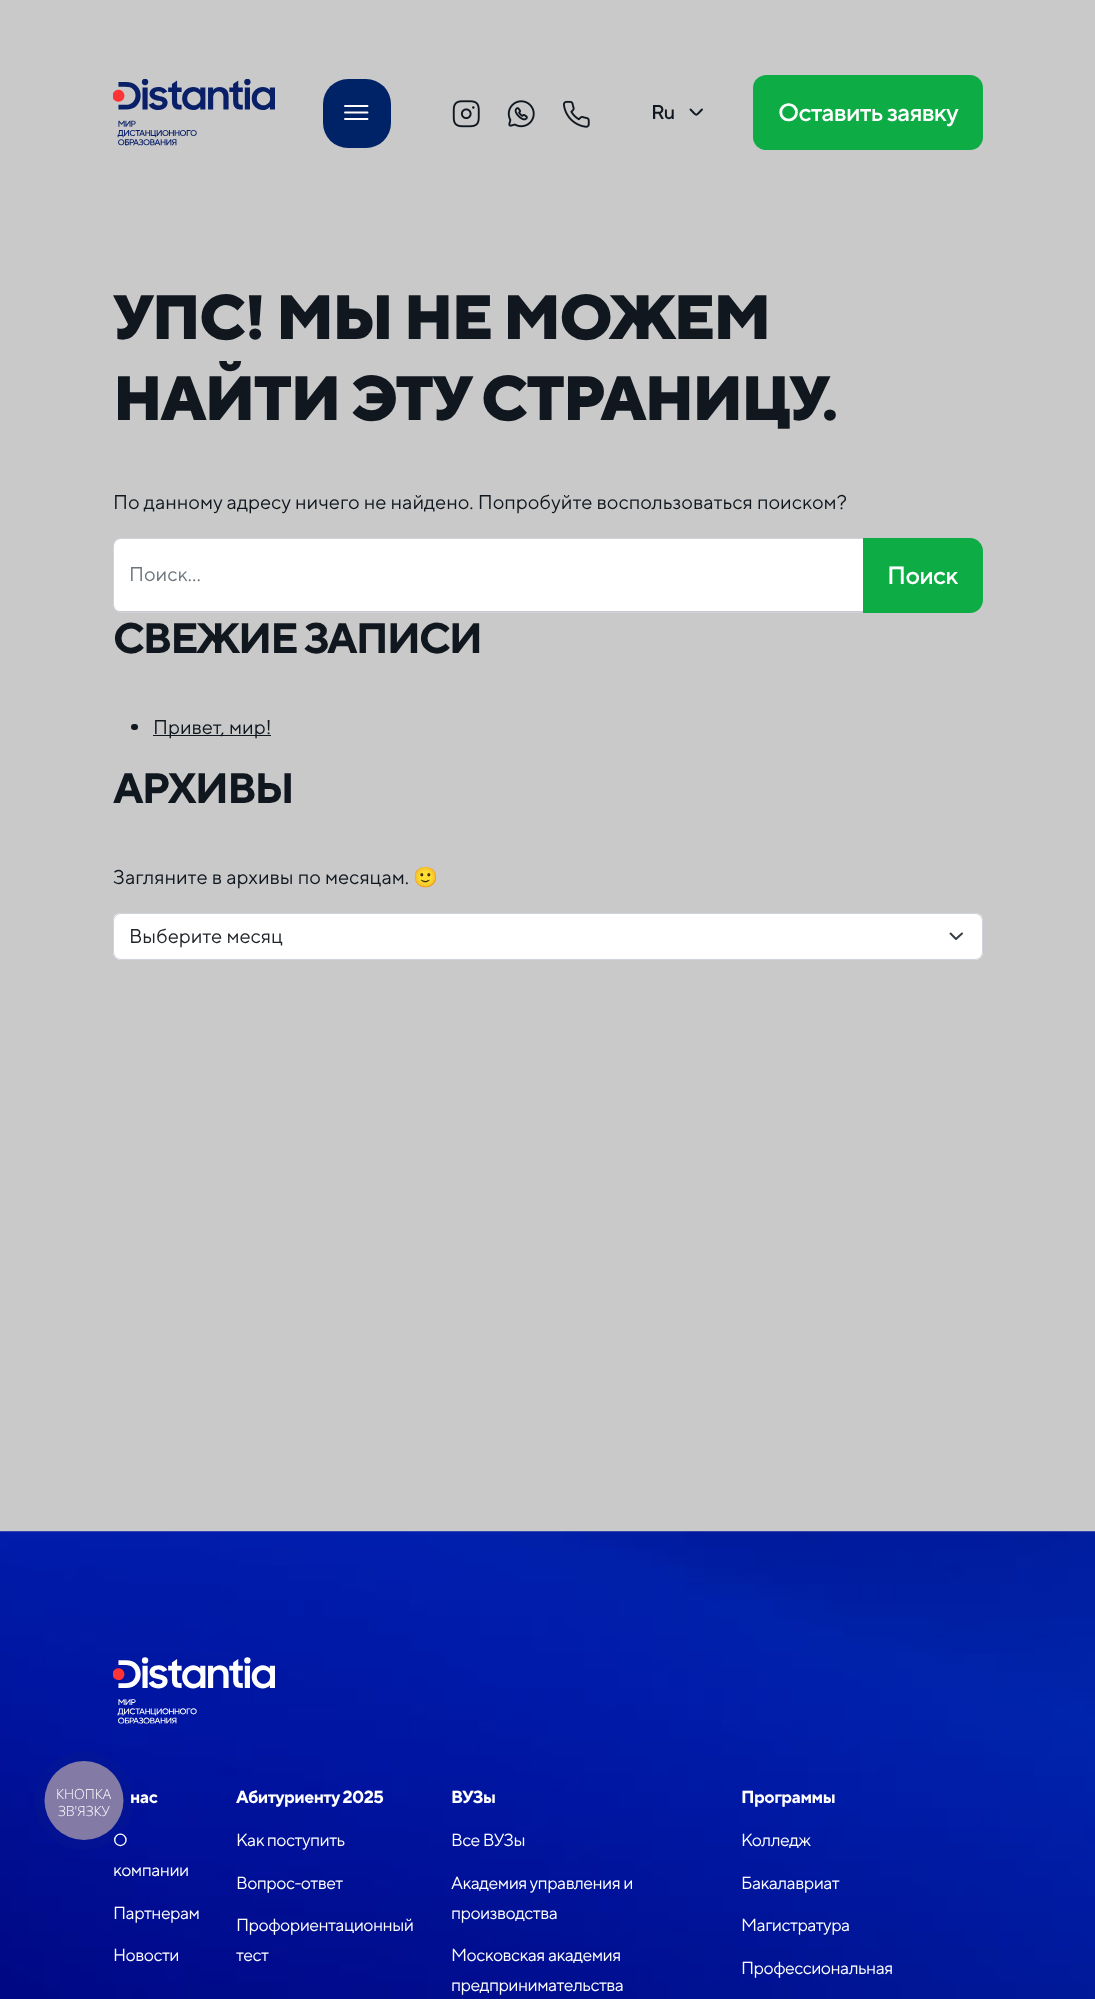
<svg xmlns="http://www.w3.org/2000/svg" width="1095" height="1999" viewBox="0 0 1095 1999">
  <rect width="100%" height="100%" fill="rgb(201,201,201)"/>
  <image x="0" y="1531" width="1095" height="468" href="pic5.png"/>
  <circle cx="84" cy="1800.5" r="49.5" fill="rgba(42,64,93,0.06)"/>
  <text x="113" y="1846" font-family="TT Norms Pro" font-size="17.5" letter-spacing="-0.5" fill="rgb(255,255,255)">О</text>
  <circle cx="84" cy="1800.5" r="39.5" fill="rgb(131,123,166)"/>
  <g font-family="Open Sans" font-size="14" font-weight="300" fill="rgb(255,255,255)">
    <text x="56" y="1799">КНОПКА</text>
    <text x="58" y="1816">ЗВ'ЯЗКУ</text>
  </g>
  <image x="113" y="79" width="162" height="67" href="pic1.png"/>
  <rect x="323" y="79" width="68" height="69" rx="25" fill="rgb(0,35,103)"/>
  <path d="M345 106H367.5M345 112.5H367.5M345 119H367.5" fill="none" stroke="rgb(255,255,255)" stroke-width="1.9" stroke-linecap="round"/>
  <image x="452" y="100" width="28" height="28" href="pic2.png"/>
  <image x="507" y="100" width="28" height="28" href="pic3.png"/>
  <image x="563" y="100" width="27" height="28" href="pic4.png"/>
  <text x="651" y="119" font-family="TT Norms Pro" font-size="20" font-weight="500" letter-spacing="-1" fill="rgb(16,23,31)">Ru</text>
  <path d="M702 109.5C695 116.5 697.5 116.5 690.5 109.5" fill="none" stroke="rgb(16,23,31)" stroke-width="1.9" stroke-linecap="round" stroke-linejoin="round"/>
  <rect x="753" y="75" width="230" height="75" rx="13" fill="rgb(13,172,69)"/>
  <text x="778" y="121" font-family="TT Norms Pro" font-size="25" font-weight="500" letter-spacing="-0.75" fill="rgb(255,255,255)">Оставить заявку</text>
  <g font-family="TT Norms Pro" font-size="62.5" font-weight="800" letter-spacing="-1.9" fill="rgb(16,23,31)">
    <text>
      <tspan x="113" y="339">УПС! МЫ НЕ МОЖЕМ</tspan>
      <tspan x="113" y="420">НАЙТИ ЭТУ СТРАНИЦУ.</tspan>
    </text>
  </g>
  <text x="113" y="509" font-family="TT Norms Pro" font-size="20" fill="rgb(16,23,31)">По данному адресу ничего не найдено. Попробуйте воспользоваться поиском?</text>
  <path d="M120 539H863V611H120C116.5 611 114 608.5 114 605V545C114 541.5 116.5 539 120 539Z" fill="rgb(255,255,255)"/>
  <path d="M121 538.5H863.5V612.5H121C117 612.5 113.5 609 113.5 605V546C113.5 542 117 538.5 121 538.5Z" fill="none" stroke="rgb(206,212,218)"/>
  <text x="129" y="581" font-family="TT Norms Pro" font-size="20" fill="rgb(108,117,125)">Поиск…</text>
  <path d="M863 538H970C977 538 983 544 983 551V600C983 607 977 613 970 613H863Z" fill="rgb(13,172,69)"/>
  <text x="887" y="584" font-family="TT Norms Pro" font-size="25" font-weight="500" letter-spacing="-0.75" fill="rgb(255,255,255)">Поиск</text>
  <text x="113" y="653" font-family="TT Norms Pro" font-size="42.5" font-weight="bold" letter-spacing="-1.9" fill="rgb(16,23,31)">СВЕЖИЕ ЗАПИСИ</text>
  <rect x="131" y="724" width="7" height="6" rx="3" fill="rgb(16,23,31)"/>
  <rect x="153" y="735" width="118" height="1" fill="rgb(16,23,31)"/>
  <text x="153" y="734" font-family="TT Norms Pro" font-size="20" fill="rgb(16,23,31)">Привет, мир!</text>
  <text x="113" y="803" font-family="TT Norms Pro" font-size="42.5" font-weight="bold" letter-spacing="-1.9" fill="rgb(16,23,31)">АРХИВЫ</text>
  <text x="113" y="884" font-family="TT Norms Pro" font-size="20" fill="rgb(16,23,31)">Загляните в архивы по месяцам.</text>
  <text x="413" y="884" font-family="Noto Color Emoji" font-size="20" fill="rgb(16,23,31)">🙂</text>
  <rect x="113" y="913" width="870" height="47" rx="8" fill="rgb(255,255,255)"/>
  <path d="M950.5 933.5L956 939L962 933.5" fill="none" stroke="rgb(52,58,64)" stroke-width="1.9" stroke-linecap="round" stroke-linejoin="round"/>
  <rect x="113.5" y="913.5" width="869" height="46" rx="7.5" fill="none" stroke="rgb(206,212,218)"/>
  <text x="129" y="943" font-family="TT Norms Pro" font-size="20" fill="rgb(33,37,41)">Выберите месяц</text>
  <image x="113" y="1657" width="162" height="67" href="pic6.png"/>
  <text x="130" y="1803" font-family="TT Norms Pro" font-size="17.5" font-weight="bold" letter-spacing="-0.5" fill="rgb(255,255,255)">нас</text>
  <g font-family="TT Norms Pro" font-size="17.5" letter-spacing="-0.5" fill="rgb(255,255,255)">
    <text x="113" y="1876">компании</text>
    <text x="113" y="1919">Партнерам</text>
    <text x="113" y="1961">Новости</text>
  </g>
  <text x="236" y="1803" font-family="TT Norms Pro" font-size="17.5" font-weight="bold" letter-spacing="-0.5" fill="rgb(255,255,255)">Абитуриенту 2025</text>
  <g font-family="TT Norms Pro" font-size="17.5" letter-spacing="-0.5" fill="rgb(255,255,255)">
    <text x="236" y="1846">Как поступить</text>
    <text x="236" y="1889">Вопрос-ответ</text>
    <text>
      <tspan x="236" y="1931">Профориентационный</tspan>
      <tspan x="236" y="1961">тест</tspan>
    </text>
  </g>
  <text x="451" y="1803" font-family="TT Norms Pro" font-size="17.5" font-weight="bold" letter-spacing="-0.5" fill="rgb(255,255,255)">ВУЗы</text>
  <g font-family="TT Norms Pro" font-size="17.5" letter-spacing="-0.5" fill="rgb(255,255,255)">
    <text x="451" y="1846">Все ВУЗы</text>
    <text>
      <tspan x="451" y="1889">Академия управления и</tspan>
      <tspan x="451" y="1919">производства</tspan>
    </text>
    <text>
      <tspan x="451" y="1961">Московская академия</tspan>
      <tspan x="451" y="1991">предпринимательства</tspan>
    </text>
  </g>
  <text x="741" y="1803" font-family="TT Norms Pro" font-size="17.5" font-weight="bold" letter-spacing="-0.5" fill="rgb(255,255,255)">Программы</text>
  <g font-family="TT Norms Pro" font-size="17.5" letter-spacing="-0.5" fill="rgb(255,255,255)">
    <text x="741" y="1846">Колледж</text>
    <text x="741" y="1889">Бакалавриат</text>
    <text x="741" y="1931">Магистратура</text>
    <text x="741" y="1974">Профессиональная</text>
  </g>
</svg>
